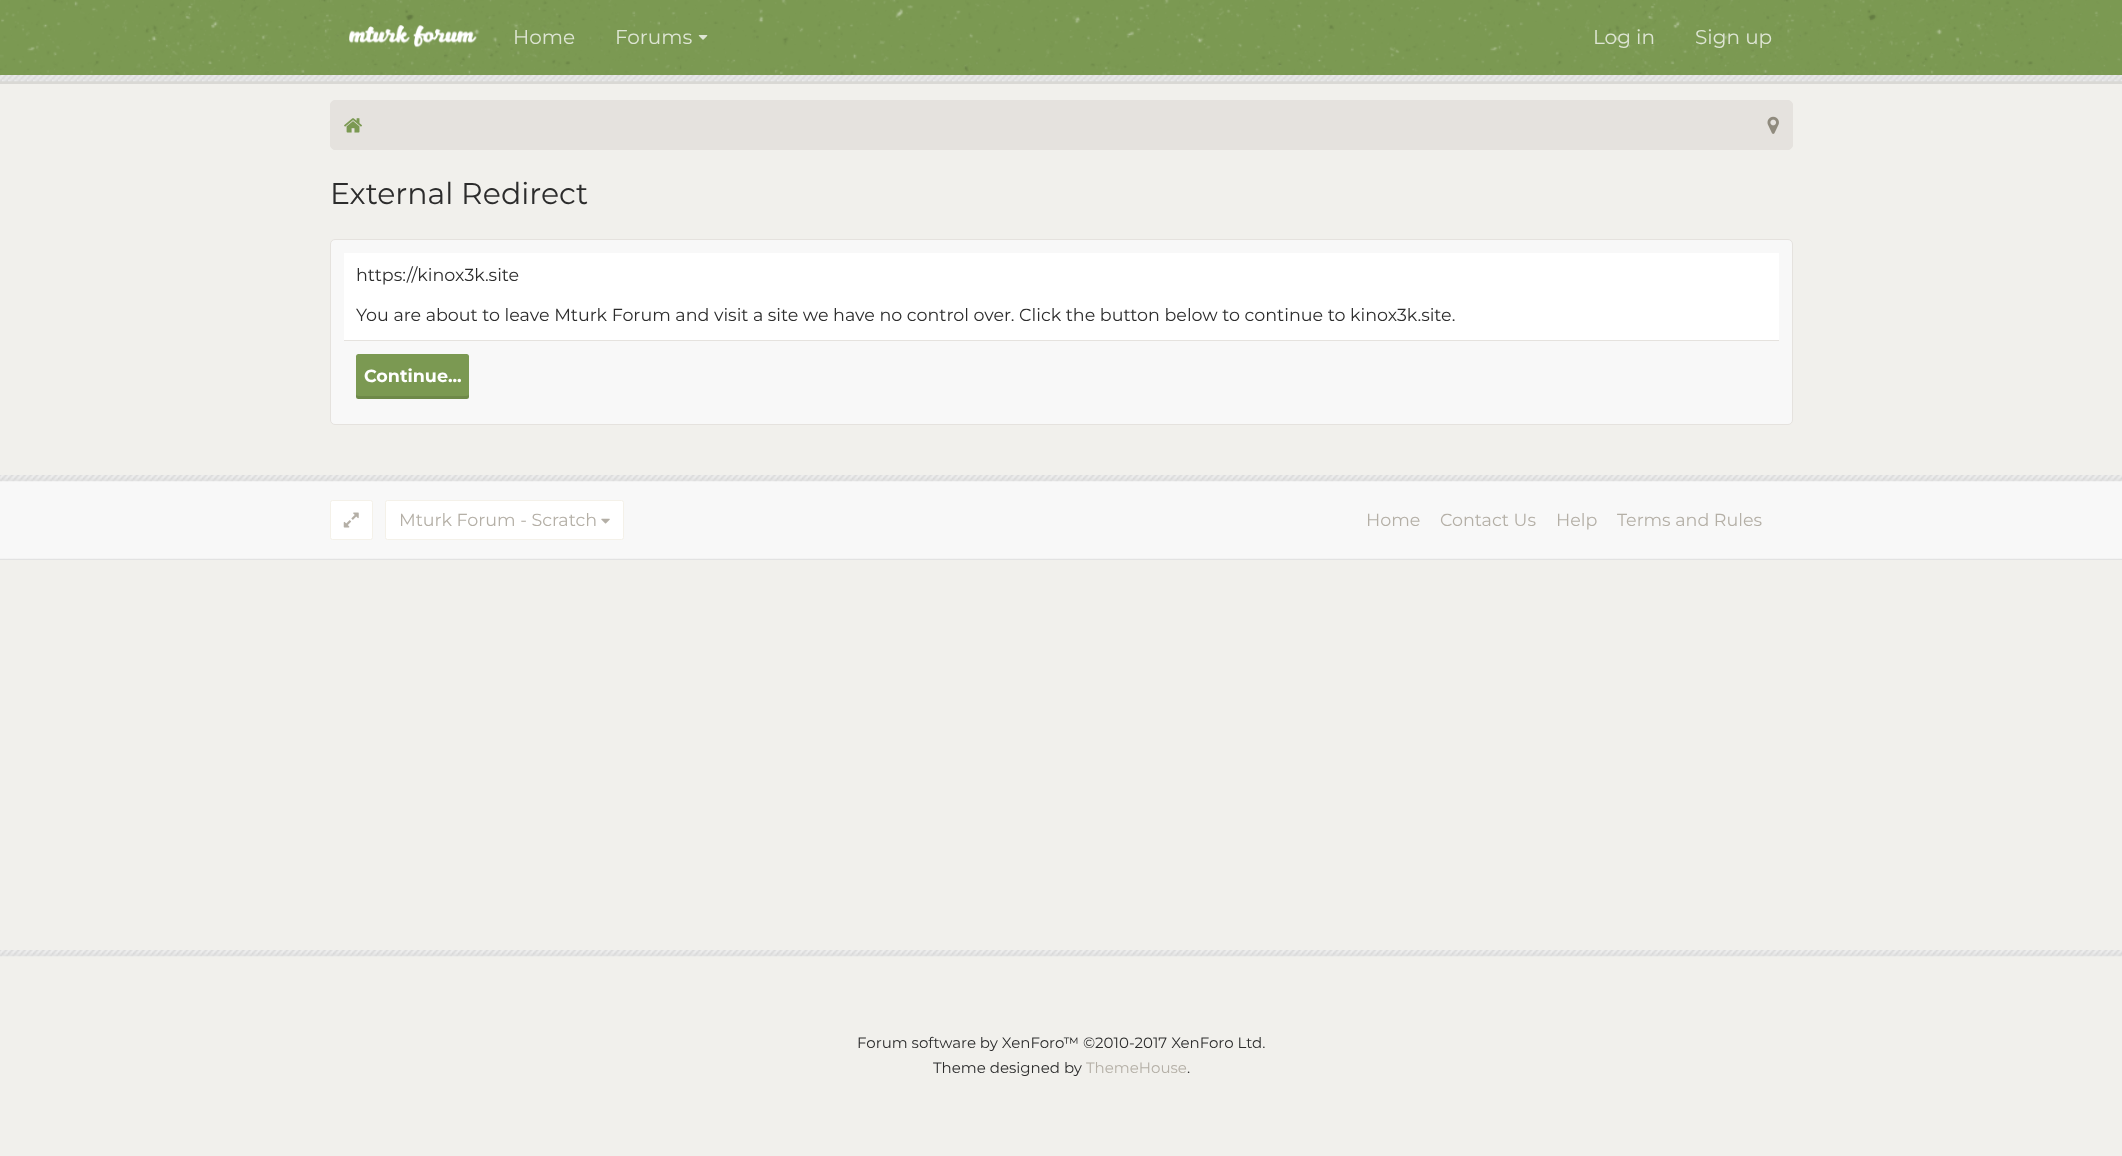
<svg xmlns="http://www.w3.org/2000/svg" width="2122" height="1156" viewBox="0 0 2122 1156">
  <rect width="100%" height="100%" fill="rgb(241,240,236)"/>
  <path d="M0 81V84H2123V3H2122V81Z" fill="rgb(217,216,212)"/>
  <image x="0" y="75" width="2122" height="7" href="pic1.png"/>
  <rect x="0" y="0" width="2122" height="75" fill="rgb(123,153,82)"/>
  <image x="0" y="0" width="2122" height="75" href="pic2.png"/>
  <image x="349" y="25" width="128" height="23" href="pic3.png"/>
  <g font-family="Montserrat" font-size="20" fill="rgb(222,229,212)">
    <text x="513" y="44">Home</text>
    <text x="615" y="44">Forums</text>
  </g>
  <image x="698" y="35" width="10" height="5" href="pic4.png"/>
  <g font-family="Montserrat" font-size="20" fill="rgb(222,229,212)">
    <text x="1593" y="44">Log in</text>
    <text x="1695" y="44">Sign up</text>
  </g>
  <rect x="330.5" y="100.5" width="1462" height="49" rx="4.5" fill="rgb(229,226,222)" stroke="rgb(229,226,222)"/>
  <image x="344" y="118" width="18" height="15" href="pic5.png"/>
  <image x="1767" y="116" width="12" height="18" href="pic6.png"/>
  <text x="330" y="204" font-family="Montserrat" font-size="30" fill="rgb(44,44,44)">External Redirect</text>
  <rect x="330.5" y="239.5" width="1462" height="185" rx="4.5" fill="rgb(248,248,248)" stroke="rgb(229,226,222)"/>
  <rect x="344" y="253" width="1435" height="87" fill="rgb(255,255,255)"/>
  <rect x="344" y="340" width="1435" height="1" fill="rgb(229,226,222)"/>
  <g font-family="Montserrat" font-size="17.5" fill="rgb(44,44,44)">
    <text x="356" y="281">https://kinox3k.site</text>
    <text x="356" y="321">You are about to leave Mturk Forum and visit a site we have no control over. Click the button below to continue to kinox3k.site.</text>
  </g>
  <rect x="356" y="354" width="113" height="45" rx="2.5" fill="rgb(123,153,82)"/>
  <path d="M356 394V396C356 398 357 399 358 399H466C468 399 469 398 469 396V394C469 395 468 396 466 396H359C357 396 356 395 356 394Z" fill="rgba(0,0,0,0.1)"/>
  <text x="364" y="382" font-family="Montserrat" font-size="17.5" font-weight="bold" fill="rgb(255,255,255)">Continue...</text>
  <rect x="0" y="481" width="2122" height="78" fill="rgb(248,248,248)"/>
  <image x="0" y="475" width="2122" height="85" href="pic7.png"/>
  <rect x="330.5" y="500.5" width="42" height="39" rx="2" fill="rgb(255,255,255)" stroke="rgb(244,241,233)"/>
  <image x="343" y="512" width="16" height="16" href="pic8.png"/>
  <rect x="385.5" y="500.5" width="238" height="39" rx="2" fill="rgb(255,255,255)" stroke="rgb(244,241,233)"/>
  <text x="399" y="526" font-family="Montserrat" font-size="17.5" fill="rgb(180,175,166)">Mturk Forum - Scratch</text>
  <image x="601" y="518" width="9" height="6" href="pic9.png"/>
  <g font-family="Montserrat" font-size="17.5" fill="rgb(180,175,166)">
    <text x="1366" y="526">Home</text>
    <text x="1440" y="526">Contact Us</text>
    <text x="1556" y="526">Help</text>
    <text x="1617" y="526">Terms and Rules</text>
  </g>
  <image x="0" y="950" width="2122" height="7" href="pic10.png"/>
  <g font-family="Montserrat" font-size="15" fill="rgb(44,44,44)">
    <text x="857" y="1048">Forum software by XenForo™ ©2010-2017 XenForo Ltd.</text>
    <text x="933" y="1073">Theme designed by</text>
  </g>
  <text x="1086" y="1073" font-family="Montserrat" font-size="15" fill="rgb(180,175,166)">ThemeHouse</text>
  <text x="1187" y="1073" font-family="Montserrat" font-size="15" fill="rgb(44,44,44)">.</text>
</svg>
